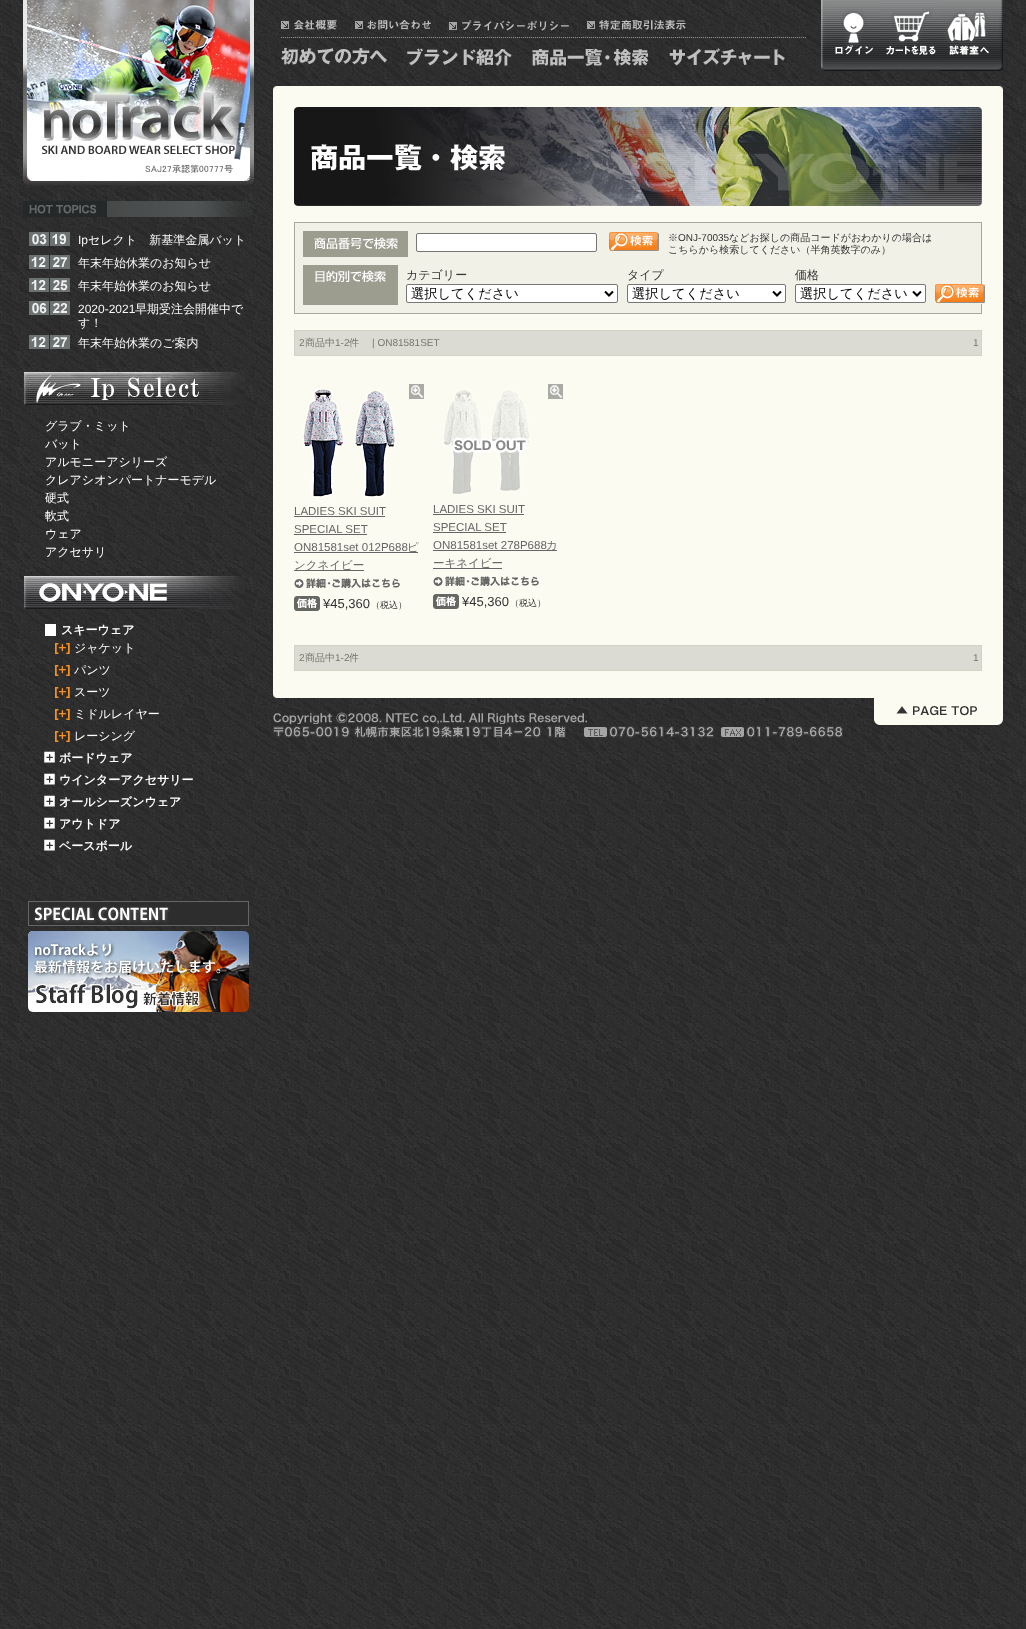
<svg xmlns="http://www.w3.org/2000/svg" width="1026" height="1629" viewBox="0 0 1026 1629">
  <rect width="100%" height="100%" fill="rgb(255,255,255)"/>
  <image x="0" y="0" width="1026" height="1629" href="pic1.png"/>
  <image x="23" y="0" width="231" height="187" href="pic2.png"/>
  <image x="23" y="201" width="230" height="16" href="pic3.png"/>
  <image x="29" y="232" width="20" height="14" href="pic4.png"/>
  <image x="50" y="232" width="20" height="14" href="pic5.png"/>
  <text x="78" y="244" font-family="Liberation Sans" font-size="12" fill="rgb(249,249,249)">Ip</text>
  <text x="88" y="244" font-family="WenQuanYi Zen Hei" font-size="12" font-weight="500" fill="rgb(249,249,249)">セレクト　新基準金属バット</text>
  <image x="29" y="255" width="20" height="14" href="pic6.png"/>
  <image x="50" y="255" width="20" height="14" href="pic7.png"/>
  <text x="78" y="267" font-family="WenQuanYi Zen Hei" font-size="12" font-weight="500" fill="rgb(249,249,249)">年末年始休業のお知らせ</text>
  <image x="29" y="278" width="20" height="14" href="pic6.png"/>
  <image x="50" y="278" width="20" height="14" href="pic8.png"/>
  <text x="78" y="290" font-family="WenQuanYi Zen Hei" font-size="12" font-weight="500" fill="rgb(249,249,249)">年末年始休業のお知らせ</text>
  <image x="29" y="301" width="20" height="14" href="pic9.png"/>
  <image x="50" y="301" width="20" height="14" href="pic10.png"/>
  <text x="78" y="313" font-family="Liberation Sans" font-size="12" fill="rgb(249,249,249)">2020-2021</text>
  <g font-family="WenQuanYi Zen Hei" font-size="12" font-weight="500" fill="rgb(249,249,249)">
    <text x="135" y="313">早期受注会開催中で</text>
    <text x="78" y="327">す！</text>
  </g>
  <image x="29" y="335" width="20" height="14" href="pic6.png"/>
  <image x="50" y="335" width="20" height="14" href="pic7.png"/>
  <text x="78" y="347" font-family="WenQuanYi Zen Hei" font-size="12" font-weight="500" fill="rgb(249,249,249)">年末年始休業のご案内</text>
  <image x="23" y="372" width="222" height="33" href="pic11.png"/>
  <g font-family="WenQuanYi Zen Hei" font-size="12" font-weight="500" fill="rgb(255,255,255)">
    <text>
      <tspan x="45" y="430">グラブ・ミット</tspan>
      <tspan x="45" y="448">バット</tspan>
      <tspan x="45" y="466">アルモニーアシリーズ</tspan>
      <tspan x="45" y="484">クレアシオンパートナーモデル</tspan>
      <tspan x="45" y="502">硬式</tspan>
      <tspan x="45" y="520">軟式</tspan>
      <tspan x="45" y="538">ウェア</tspan>
      <tspan x="45" y="556">アクセサリ</tspan>
    </text>
  </g>
  <image x="23" y="576" width="222" height="33" href="pic12.png"/>
  <rect x="45" y="624" width="11" height="12" fill="rgb(255,255,255)"/>
  <text x="61" y="634" font-family="WenQuanYi Zen Hei" font-size="12" font-weight="bold" fill="rgb(255,255,255)">スキーウェア</text>
  <image x="55" y="643" width="15" height="11" href="pic13.png"/>
  <text x="74" y="652" font-family="WenQuanYi Zen Hei" font-size="12" font-weight="500" fill="rgb(255,255,255)">ジャケット</text>
  <image x="55" y="665" width="15" height="11" href="pic14.png"/>
  <text x="74" y="674" font-family="WenQuanYi Zen Hei" font-size="12" font-weight="500" fill="rgb(255,255,255)">パンツ</text>
  <image x="55" y="687" width="15" height="11" href="pic15.png"/>
  <text x="74" y="696" font-family="WenQuanYi Zen Hei" font-size="12" font-weight="500" fill="rgb(255,255,255)">スーツ</text>
  <image x="55" y="709" width="15" height="11" href="pic16.png"/>
  <text x="74" y="718" font-family="WenQuanYi Zen Hei" font-size="12" font-weight="500" fill="rgb(255,255,255)">ミドルレイヤー</text>
  <image x="55" y="731" width="15" height="11" href="pic17.png"/>
  <text x="74" y="740" font-family="WenQuanYi Zen Hei" font-size="12" font-weight="500" fill="rgb(255,255,255)">レーシング</text>
  <image x="44" y="751" width="11" height="12" href="pic18.png"/>
  <text x="59" y="762" font-family="WenQuanYi Zen Hei" font-size="12" font-weight="bold" fill="rgb(255,255,255)">ボードウェア</text>
  <image x="44" y="773" width="11" height="12" href="pic18.png"/>
  <text x="59" y="784" font-family="WenQuanYi Zen Hei" font-size="12" font-weight="bold" fill="rgb(255,255,255)">ウインターアクセサリー</text>
  <image x="44" y="795" width="11" height="12" href="pic18.png"/>
  <text x="59" y="806" font-family="WenQuanYi Zen Hei" font-size="12" font-weight="bold" fill="rgb(255,255,255)">オールシーズンウェア</text>
  <image x="44" y="817" width="11" height="12" href="pic18.png"/>
  <text x="59" y="828" font-family="WenQuanYi Zen Hei" font-size="12" font-weight="bold" fill="rgb(255,255,255)">アウトドア</text>
  <image x="44" y="839" width="11" height="12" href="pic18.png"/>
  <text x="59" y="850" font-family="WenQuanYi Zen Hei" font-size="12" font-weight="bold" fill="rgb(255,255,255)">ベースボール</text>
  <image x="28" y="901" width="221" height="25" href="pic19.png"/>
  <image x="28" y="931" width="221" height="81" href="pic20.png"/>
  <image x="281" y="37" width="525" height="1" href="pic21.png"/>
  <image x="281" y="20" width="56" height="10" href="pic22.png"/>
  <image x="355" y="20" width="76" height="10" href="pic23.png"/>
  <image x="449" y="20" width="120" height="11" href="pic24.png"/>
  <image x="587" y="20" width="99" height="10" href="pic25.png"/>
  <image x="821" y="0" width="59" height="71" href="pic26.png"/>
  <image x="880" y="0" width="60" height="71" href="pic27.png"/>
  <image x="940" y="0" width="63" height="71" href="pic28.png"/>
  <image x="281" y="48" width="106" height="17" href="pic29.png"/>
  <image x="407" y="48" width="105" height="18" href="pic30.png"/>
  <image x="532" y="48" width="117" height="18" href="pic31.png"/>
  <image x="669" y="48" width="116" height="18" href="pic32.png"/>
  <rect x="273" y="90" width="730" height="602" fill="rgb(251,251,241)"/>
  <image x="273" y="86" width="730" height="4" href="pic33.png"/>
  <image x="294" y="107" width="688" height="99" href="pic34.png"/>
  <rect x="294.5" y="222.5" width="687" height="91" fill="rgb(241,241,232)" stroke="rgb(168,168,159)"/>
  <rect x="303" y="231" width="105" height="26" fill="rgb(156,156,143)"/>
  <image x="314" y="237" width="84" height="13" href="pic35.png"/>
  <rect x="416.5" y="233.5" width="180" height="18" rx="1.5" fill="rgb(255,255,255)" stroke="rgb(118,118,118)"/>
  <image x="609" y="232" width="50" height="20" href="pic36.png"/>
  <text x="668" y="241" font-family="WenQuanYi Zen Hei" font-size="10" font-weight="500" fill="rgb(51,51,51)">※</text>
  <text x="678" y="241" font-family="Liberation Sans" font-size="10" fill="rgb(51,51,51)">ONJ-70035</text>
  <g font-family="WenQuanYi Zen Hei" font-size="10" font-weight="500" fill="rgb(51,51,51)">
    <text x="729" y="241">などお探しの商品コードがおわかりの場合は</text>
    <text x="668" y="253">こちらから検索してください（半角英数字のみ）</text>
  </g>
  <rect x="303" y="265" width="95" height="40" fill="rgb(156,156,143)"/>
  <image x="315" y="270" width="71" height="12" href="pic37.png"/>
  <text x="406" y="279" font-family="WenQuanYi Zen Hei" font-size="12" font-weight="500" fill="rgb(51,51,51)">カテゴリー</text>
  <rect x="406.5" y="284.5" width="211" height="18" rx="1.5" fill="rgb(255,255,255)" stroke="rgb(118,118,118)"/>
  <path d="M605 291.5L609 295.5L613 291.5" fill="none" stroke="rgb(0,0,0)" stroke-width="2"/>
  <text x="411" y="298" font-family="WenQuanYi Zen Hei" font-size="13.25" font-weight="500" fill="rgb(0,0,0)">選択してください</text>
  <text x="627" y="279" font-family="WenQuanYi Zen Hei" font-size="12" font-weight="500" fill="rgb(51,51,51)">タイプ</text>
  <rect x="627.5" y="284.5" width="158" height="18" rx="1.5" fill="rgb(255,255,255)" stroke="rgb(118,118,118)"/>
  <path d="M773 291.5L777 295.5L781 291.5" fill="none" stroke="rgb(0,0,0)" stroke-width="2"/>
  <text x="632" y="298" font-family="WenQuanYi Zen Hei" font-size="13.25" font-weight="500" fill="rgb(0,0,0)">選択してください</text>
  <text x="795" y="279" font-family="WenQuanYi Zen Hei" font-size="12" font-weight="500" fill="rgb(51,51,51)">価格</text>
  <rect x="795.5" y="284.5" width="130" height="18" rx="1.5" fill="rgb(255,255,255)" stroke="rgb(118,118,118)"/>
  <path d="M913 291.5L917 295.5L921 291.5" fill="none" stroke="rgb(0,0,0)" stroke-width="2"/>
  <text x="800" y="298" font-family="WenQuanYi Zen Hei" font-size="13.25" font-weight="500" fill="rgb(0,0,0)">選択してください</text>
  <image x="935" y="284" width="50" height="20" href="pic36.png"/>
  <rect x="294.5" y="330.5" width="687" height="25" fill="rgb(219,219,212)" stroke="rgb(212,210,196)"/>
  <text x="299" y="346" font-family="Liberation Sans" font-size="10" fill="rgb(118,118,107)">2</text>
  <text x="305" y="346" font-family="WenQuanYi Zen Hei" font-size="10" font-weight="500" fill="rgb(118,118,107)">商品中</text>
  <text x="335" y="346" font-family="Liberation Sans" font-size="10" fill="rgb(118,118,107)">1-2</text>
  <text x="349" y="346" font-family="WenQuanYi Zen Hei" font-size="10" font-weight="500" fill="rgb(118,118,107)">件</text>
  <g font-family="Liberation Sans" font-size="10" fill="rgb(118,118,107)">
    <text x="372" y="346">| ON81581SET</text>
    <text x="973" y="346">1</text>
  </g>
  <image x="409" y="384" width="15" height="15" href="pic38.png"/>
  <image x="303" y="388" width="95" height="110" href="pic39.png"/>
  <text x="294" y="515" font-family="Liberation Sans" font-size="11.5" fill="rgb(102,102,102)">LADIES SKI SUIT</text>
  <rect x="294" y="516" width="91" height="1" fill="rgb(102,102,102)"/>
  <text x="294" y="533" font-family="Liberation Sans" font-size="11.5" fill="rgb(102,102,102)">SPECIAL SET</text>
  <rect x="294" y="534" width="73" height="1" fill="rgb(102,102,102)"/>
  <text x="294" y="551" font-family="Liberation Sans" font-size="11.5" fill="rgb(102,102,102)">ON81581set 012P688</text>
  <rect x="294" y="552" width="124" height="1" fill="rgb(102,102,102)"/>
  <text x="407" y="551" font-family="WenQuanYi Zen Hei" font-size="11.5" font-weight="500" fill="rgb(102,102,102)">ピ</text>
  <rect x="294" y="570" width="70" height="1" fill="rgb(102,102,102)"/>
  <text x="294" y="569" font-family="WenQuanYi Zen Hei" font-size="11.5" font-weight="500" fill="rgb(102,102,102)">ンクネイビー</text>
  <image x="294" y="578" width="106" height="10" href="pic40.png"/>
  <image x="294" y="596" width="26" height="15" href="pic41.png"/>
  <text x="323" y="608" font-family="Liberation Sans" font-size="13" fill="rgb(51,51,51)">¥45,360</text>
  <text x="371" y="608" font-family="WenQuanYi Zen Hei" font-size="9" font-weight="500" fill="rgb(51,51,51)">（税込）</text>
  <image x="548" y="384" width="15" height="15" href="pic38.png"/>
  <image x="442" y="389" width="89" height="107" href="pic42.png"/>
  <image x="442" y="389" width="89" height="107" href="pic43.png"/>
  <text x="433" y="513" font-family="Liberation Sans" font-size="11.5" fill="rgb(102,102,102)">LADIES SKI SUIT</text>
  <rect x="433" y="514" width="91" height="1" fill="rgb(102,102,102)"/>
  <text x="433" y="531" font-family="Liberation Sans" font-size="11.5" fill="rgb(102,102,102)">SPECIAL SET</text>
  <rect x="433" y="532" width="73" height="1" fill="rgb(102,102,102)"/>
  <text x="433" y="549" font-family="Liberation Sans" font-size="11.5" fill="rgb(102,102,102)">ON81581set 278P688</text>
  <rect x="433" y="550" width="124" height="1" fill="rgb(102,102,102)"/>
  <text x="546" y="549" font-family="WenQuanYi Zen Hei" font-size="11.5" font-weight="500" fill="rgb(102,102,102)">カ</text>
  <rect x="433" y="568" width="69" height="1" fill="rgb(102,102,102)"/>
  <text x="433" y="567" font-family="WenQuanYi Zen Hei" font-size="11.5" font-weight="500" fill="rgb(102,102,102)">ーキネイビー</text>
  <image x="433" y="576" width="106" height="10" href="pic40.png"/>
  <image x="433" y="594" width="26" height="15" href="pic41.png"/>
  <text x="462" y="606" font-family="Liberation Sans" font-size="13" fill="rgb(51,51,51)">¥45,360</text>
  <text x="510" y="606" font-family="WenQuanYi Zen Hei" font-size="9" font-weight="500" fill="rgb(51,51,51)">（税込）</text>
  <rect x="294.5" y="645.5" width="687" height="25" fill="rgb(219,219,212)" stroke="rgb(212,210,196)"/>
  <text x="299" y="661" font-family="Liberation Sans" font-size="10" fill="rgb(118,118,107)">2</text>
  <text x="305" y="661" font-family="WenQuanYi Zen Hei" font-size="10" font-weight="500" fill="rgb(118,118,107)">商品中</text>
  <text x="335" y="661" font-family="Liberation Sans" font-size="10" fill="rgb(118,118,107)">1-2</text>
  <text x="349" y="661" font-family="WenQuanYi Zen Hei" font-size="10" font-weight="500" fill="rgb(118,118,107)">件</text>
  <text x="973" y="661" font-family="Liberation Sans" font-size="10" fill="rgb(118,118,107)">1</text>
  <image x="273" y="692" width="730" height="6" href="pic44.png"/>
  <image x="273" y="712" width="570" height="26" href="pic45.png"/>
  <image x="874" y="698" width="129" height="27" href="pic46.png"/>
</svg>
